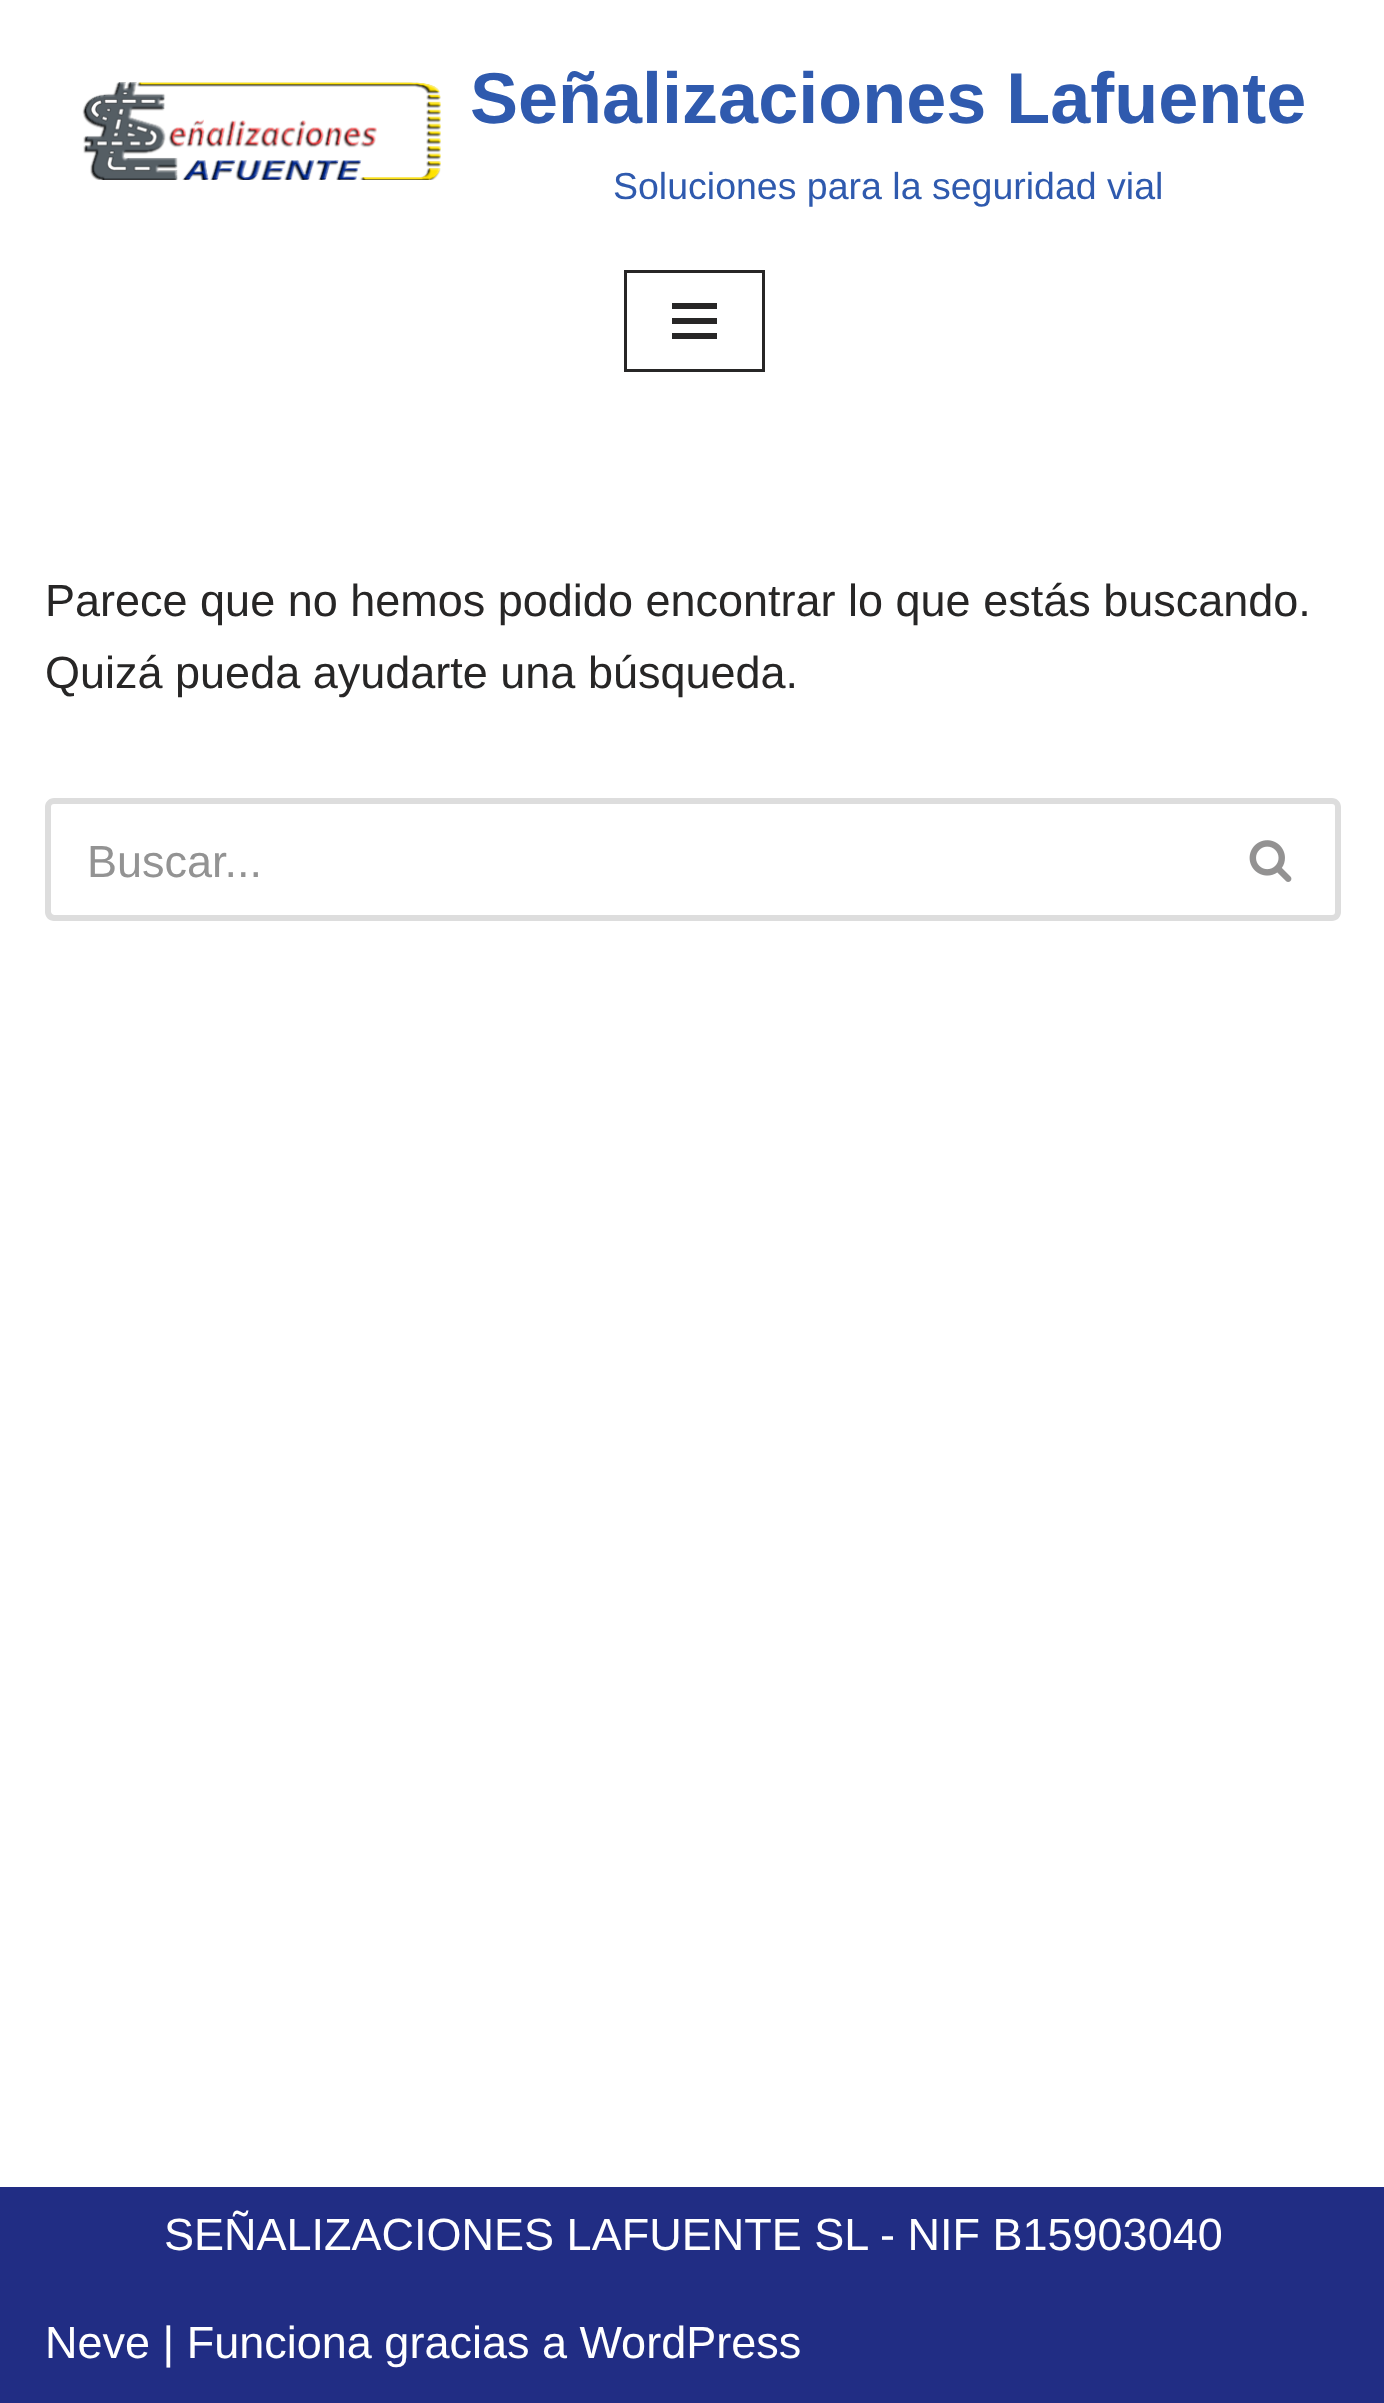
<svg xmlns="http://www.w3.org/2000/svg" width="1384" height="2403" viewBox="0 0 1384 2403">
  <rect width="100%" height="100%" fill="rgb(255,255,255)"/>
  <image x="82" y="82" width="359" height="98" href="pic1.png"/>
  <text x="470" y="123" font-family="Liberation Sans" font-size="72" font-weight="bold" fill="rgb(47,90,174)">Señalizaciones Lafuente</text>
  <text x="613" y="199" font-family="Liberation Sans" font-size="37.5" fill="rgb(47,90,174)">Soluciones para la seguridad vial</text>
  <rect x="625.5" y="271.5" width="138" height="99" fill="none" stroke="rgb(39,38,38)" stroke-width="3"/>
  <rect x="672" y="303" width="45" height="6" fill="rgb(39,38,38)"/>
  <rect x="672" y="318" width="45" height="6" fill="rgb(39,38,38)"/>
  <rect x="672" y="333" width="45" height="6" fill="rgb(39,38,38)"/>
  <g font-family="Liberation Sans" font-size="45" fill="rgb(39,38,38)">
    <text>
      <tspan x="45" y="616">Parece que no hemos podido encontrar lo que estás buscando.</tspan>
      <tspan x="45" y="688">Quizá pueda ayudarte una búsqueda.</tspan>
    </text>
  </g>
  <path d="M54 798H1206V921H54C49 921 45 917 45 912V807C45 802 49 798 54 798ZM54 804H1206V915H54L52 914L51 912V807C51 805 52 804 54 804Z" fill="rgb(221,221,221)" fill-rule="evenodd"/>
  <text x="87" y="877" font-family="Liberation Sans" font-size="45" fill="rgb(147,147,147)">Buscar...</text>
  <path d="M1206 798H1332C1337 798 1341 802 1341 807V912C1341 917 1337 921 1332 921H1206ZM1206 804H1332C1334 804 1335 805 1335 807V912C1335 914 1334 915 1332 915H1206Z" fill="rgb(221,221,221)" fill-rule="evenodd"/>
  <image x="1249" y="840" width="43" height="42" href="pic2.png"/>
  <rect x="0" y="2187" width="1384" height="216" fill="rgb(33,45,132)"/>
  <g font-family="Liberation Sans" font-size="45" fill="rgb(255,255,255)">
    <text x="164" y="2250">SEÑALIZACIONES LAFUENTE SL - NIF B15903040</text>
    <text x="45" y="2358">Neve | Funciona gracias a WordPress</text>
  </g>
</svg>
